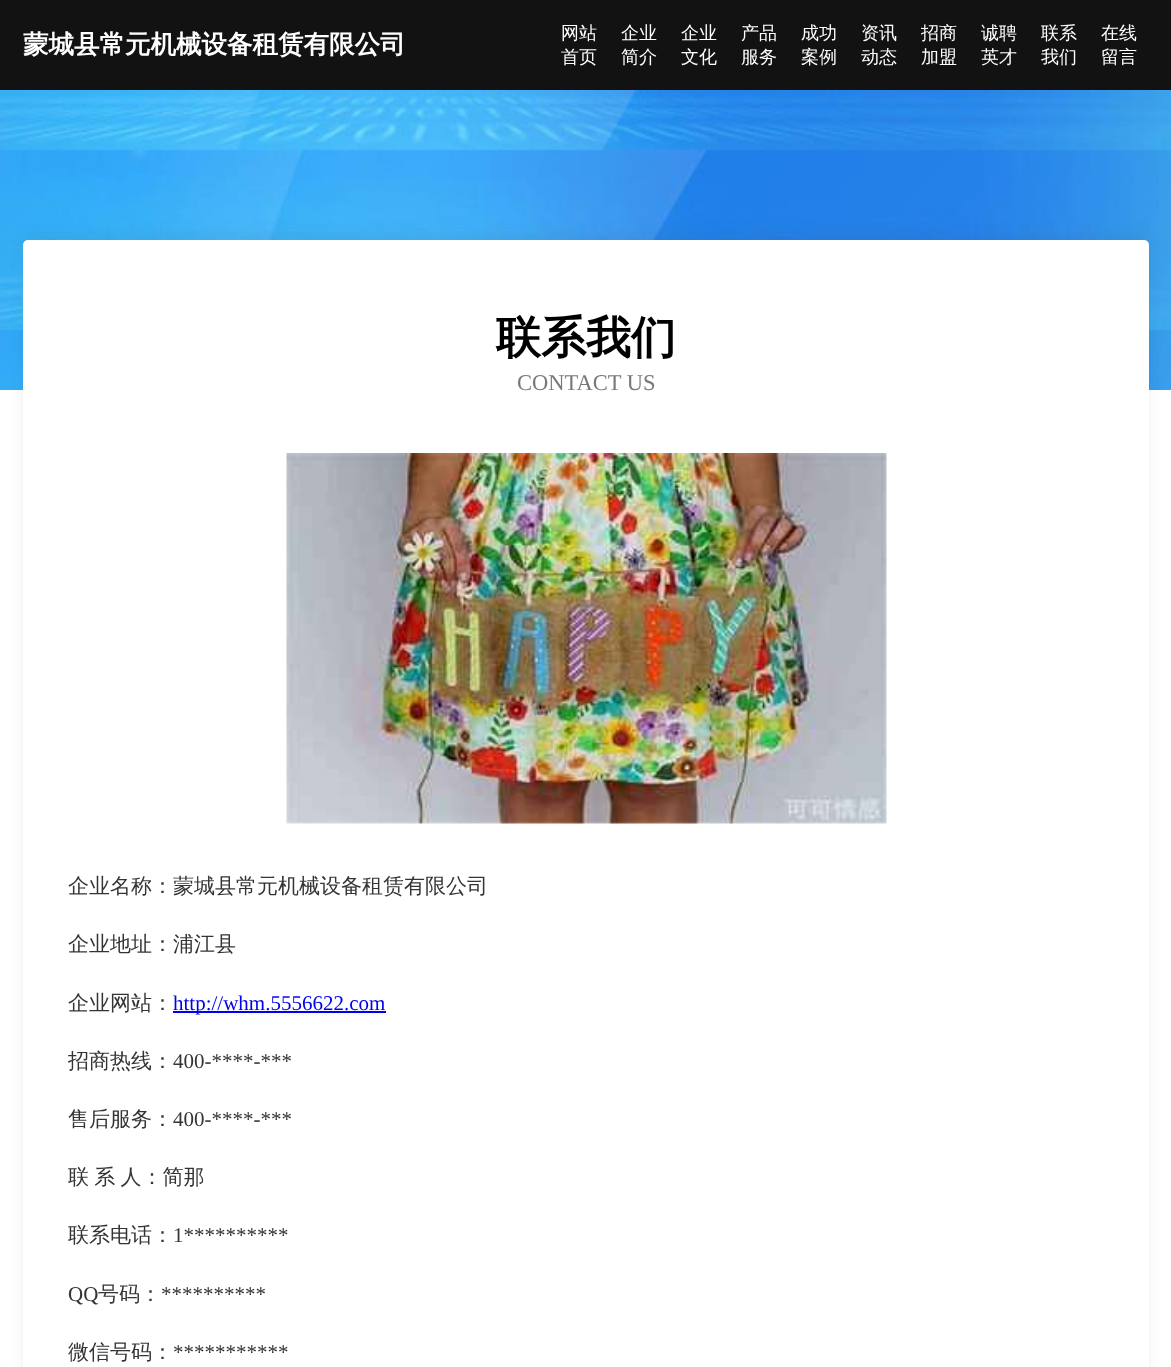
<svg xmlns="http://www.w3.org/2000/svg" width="1171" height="1367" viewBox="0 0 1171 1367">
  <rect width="100%" height="100%" fill="rgb(255,255,255)"/>
  <rect x="0" y="0" width="1171" height="90" fill="rgb(18,18,18)"/>
  <text x="23" y="53" font-family="WenQuanYi Zen Hei" font-size="25.5" font-weight="bold" fill="rgb(255,255,255)">蒙城县常元机械设备租赁有限公司</text>
  <g font-family="WenQuanYi Zen Hei" font-size="18" font-weight="500" fill="rgb(255,255,255)">
    <text>
      <tspan x="561" y="39">网站</tspan>
      <tspan x="561" y="63">首页</tspan>
    </text>
    <text>
      <tspan x="621" y="39">企业</tspan>
      <tspan x="621" y="63">简介</tspan>
    </text>
    <text>
      <tspan x="681" y="39">企业</tspan>
      <tspan x="681" y="63">文化</tspan>
    </text>
    <text>
      <tspan x="741" y="39">产品</tspan>
      <tspan x="741" y="63">服务</tspan>
    </text>
    <text>
      <tspan x="801" y="39">成功</tspan>
      <tspan x="801" y="63">案例</tspan>
    </text>
    <text>
      <tspan x="861" y="39">资讯</tspan>
      <tspan x="861" y="63">动态</tspan>
    </text>
    <text>
      <tspan x="921" y="39">招商</tspan>
      <tspan x="921" y="63">加盟</tspan>
    </text>
    <text>
      <tspan x="981" y="39">诚聘</tspan>
      <tspan x="981" y="63">英才</tspan>
    </text>
    <text>
      <tspan x="1041" y="39">联系</tspan>
      <tspan x="1041" y="63">我们</tspan>
    </text>
    <text>
      <tspan x="1101" y="39">在线</tspan>
      <tspan x="1101" y="63">留言</tspan>
    </text>
  </g>
  <image x="0" y="90" width="1171" height="300" href="pic1.png"/>
  <rect x="24" y="234" width="1124" height="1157" rx="3" fill="rgba(66,66,66,0.09)" filter="blur(7px)"/>
  <rect x="23" y="240" width="1126" height="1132" rx="5" fill="rgb(255,255,255)"/>
  <text x="496" y="353" font-family="WenQuanYi Zen Hei" font-size="45" font-weight="bold" fill="rgb(0,0,0)">联系我们</text>
  <text x="517" y="390" font-family="Liberation Serif" font-size="22.5" fill="rgb(120,120,120)">CONTACT US</text>
  <image x="286" y="453" width="601" height="371" href="pic2.png"/>
  <g font-family="WenQuanYi Zen Hei" font-size="21" font-weight="500" fill="rgb(52,52,52)">
    <text x="68" y="893">企业名称：蒙城县常元机械设备租赁有限公司</text>
    <text x="68" y="951">企业地址：浦江县</text>
    <text x="68" y="1010">企业网站：</text>
  </g>
  <rect x="173" y="1011" width="213" height="2" fill="rgb(0,0,238)"/>
  <text x="173" y="1010" font-family="Liberation Serif" font-size="21" fill="rgb(0,0,238)">http://whm.5556622.com</text>
  <text x="68" y="1068" font-family="WenQuanYi Zen Hei" font-size="21" font-weight="500" fill="rgb(52,52,52)">招商热线：</text>
  <text x="173" y="1068" font-family="Liberation Serif" font-size="21" fill="rgb(52,52,52)">400-****-***</text>
  <text x="68" y="1126" font-family="WenQuanYi Zen Hei" font-size="21" font-weight="500" fill="rgb(52,52,52)">售后服务：</text>
  <text x="173" y="1126" font-family="Liberation Serif" font-size="21" fill="rgb(52,52,52)">400-****-***</text>
  <g font-family="WenQuanYi Zen Hei" font-size="21" font-weight="500" fill="rgb(52,52,52)">
    <text x="68" y="1184" word-spacing="-1">联 系 人：简那</text>
    <text x="68" y="1242">联系电话：</text>
  </g>
  <g font-family="Liberation Serif" font-size="21" fill="rgb(52,52,52)">
    <text x="173" y="1242">1**********</text>
    <text x="68" y="1301">QQ</text>
  </g>
  <text x="98" y="1301" font-family="WenQuanYi Zen Hei" font-size="21" font-weight="500" fill="rgb(52,52,52)">号码：</text>
  <text x="161" y="1301" font-family="Liberation Serif" font-size="21" fill="rgb(52,52,52)">**********</text>
  <text x="68" y="1359" font-family="WenQuanYi Zen Hei" font-size="21" font-weight="500" fill="rgb(52,52,52)">微信号码：</text>
  <text x="173" y="1359" font-family="Liberation Serif" font-size="21" fill="rgb(52,52,52)">***********</text>
</svg>
